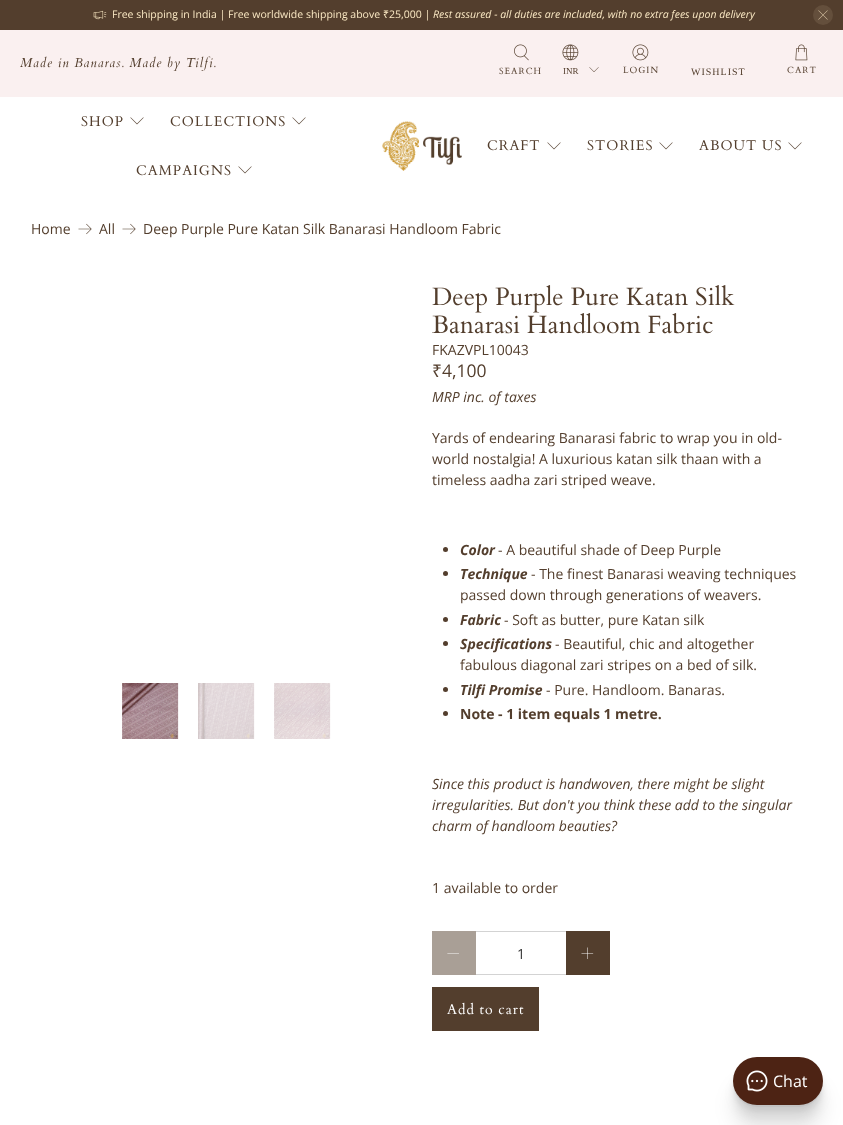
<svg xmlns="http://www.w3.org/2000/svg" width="843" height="1125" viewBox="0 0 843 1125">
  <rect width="100%" height="100%" fill="rgb(255,255,255)"/>
  <rect x="0" y="0" width="843" height="30" fill="rgb(83,62,45)"/>
  <image x="93" y="10" width="14" height="10" href="pic1.png"/>
  <text x="112" y="18" font-family="Open Sans" font-size="10.5" fill="rgb(251,233,196)">Free shipping in India | Free worldwide shipping above</text>
  <text x="383" y="18" font-family="Noto Sans" font-size="10.5" fill="rgb(251,233,196)">₹</text>
  <text x="389" y="18" font-family="Open Sans" font-size="10.5" fill="rgb(251,233,196)">25,000 |</text>
  <text x="433" y="18" font-family="Open Sans" font-size="10.5" font-style="italic" fill="rgb(251,233,196)">Rest assured - all duties are included, with no extra fees upon delivery</text>
  <circle cx="823" cy="15" r="10" fill="rgb(100,79,60)"/>
  <image x="818" y="10" width="10" height="10" href="pic2.png"/>
  <rect x="0" y="30" width="843" height="67" fill="rgb(250,240,240)"/>
  <text x="20" y="67" font-family="Cardo" font-size="13" font-style="italic" letter-spacing="1" fill="rgb(83,62,45)">Made in Banaras. Made by Tilfi.</text>
  <image x="514" y="44" width="15" height="17" href="pic3.png"/>
  <text x="499" y="74" font-family="Cardo" font-size="9" letter-spacing="1" fill="rgb(83,62,45)">SEARCH</text>
  <image x="562" y="44" width="17" height="17" href="pic4.png"/>
  <text x="563" y="74" font-family="Liberation Serif" font-size="9" fill="rgb(83,62,45)">INR</text>
  <image x="589" y="67" width="10" height="5" href="pic5.png"/>
  <image x="632" y="44" width="17" height="17" href="pic6.png"/>
  <text x="623" y="73" font-family="Cardo" font-size="9" letter-spacing="1" fill="rgb(83,62,45)">LOGIN</text>
  <text x="691" y="75" font-family="Liberation Serif" font-size="10" letter-spacing="1" fill="rgb(83,62,45)">WISHLIST</text>
  <image x="795" y="44" width="13" height="17" href="pic7.png"/>
  <text x="787" y="73" font-family="Cardo" font-size="9" letter-spacing="1" fill="rgb(83,62,45)">CART</text>
  <text x="81" y="126" font-family="Cardo" font-size="14" letter-spacing="1" fill="rgb(83,62,45)">SHOP</text>
  <image x="130" y="117" width="14" height="8" href="pic8.png"/>
  <text x="170" y="126" font-family="Cardo" font-size="14" letter-spacing="1" fill="rgb(83,62,45)">COLLECTIONS</text>
  <image x="292" y="117" width="14" height="8" href="pic8.png"/>
  <text x="136" y="175" font-family="Cardo" font-size="14" letter-spacing="1" fill="rgb(83,62,45)">CAMPAIGNS</text>
  <image x="238" y="166" width="14" height="8" href="pic8.png"/>
  <image x="382" y="121" width="80" height="50" href="pic9.png"/>
  <text x="487" y="150" font-family="Cardo" font-size="14" letter-spacing="1" fill="rgb(83,62,45)">CRAFT</text>
  <image x="547" y="142" width="14" height="8" href="pic8.png"/>
  <text x="587" y="150" font-family="Cardo" font-size="14" letter-spacing="1" fill="rgb(83,62,45)">STORIES</text>
  <image x="659" y="142" width="14" height="8" href="pic8.png"/>
  <text x="699" y="150" font-family="Cardo" font-size="14" letter-spacing="1" fill="rgb(83,62,45)">ABOUT US</text>
  <image x="788" y="142" width="14" height="8" href="pic8.png"/>
  <text x="31" y="234" font-family="Open Sans" font-size="14" fill="rgb(83,62,45)">Home</text>
  <image x="78" y="223" width="14" height="12" href="pic10.png"/>
  <text x="99" y="234" font-family="Open Sans" font-size="14" fill="rgb(83,62,45)">All</text>
  <image x="122" y="223" width="14" height="12" href="pic10.png"/>
  <text x="143" y="234" font-family="Open Sans" font-size="14" fill="rgb(83,62,45)">Deep Purple Pure Katan Silk Banarasi Handloom Fabric</text>
  <image x="122" y="683" width="57" height="56" href="pic11.png"/>
  <image x="198" y="683" width="57" height="56" href="pic12.png"/>
  <image x="274" y="683" width="57" height="56" href="pic13.png"/>
  <g font-family="Cardo" font-size="25" fill="rgb(83,62,45)">
    <text>
      <tspan x="432" y="305">Deep Purple Pure Katan Silk</tspan>
      <tspan x="432" y="333">Banarasi Handloom Fabric</tspan>
    </text>
  </g>
  <text x="432" y="355" font-family="Open Sans" font-size="14" fill="rgb(83,62,45)">FKAZVPL10043</text>
  <text x="432" y="377" font-family="Noto Sans" font-size="17.5" fill="rgb(83,62,45)">₹</text>
  <text x="442" y="377" font-family="Open Sans" font-size="17.5" fill="rgb(83,62,45)">4,100</text>
  <text x="432" y="402" font-family="Open Sans" font-size="14" font-style="italic" fill="rgb(83,62,45)">MRP inc. of taxes</text>
  <g font-family="Open Sans" font-size="14" fill="rgb(83,62,45)">
    <text>
      <tspan x="432" y="443">Yards of endearing Banarasi fabric to wrap you in old-</tspan>
      <tspan x="432" y="464">world nostalgia! A luxurious katan silk thaan with a</tspan>
      <tspan x="432" y="485">timeless aadha zari striped weave.</tspan>
    </text>
  </g>
  <circle cx="445.5" cy="549.5" r="2.5" fill="rgb(83,62,45)"/>
  <text x="460" y="555" font-family="Open Sans" font-size="14" font-weight="bold" font-style="italic" fill="rgb(83,62,45)">Color</text>
  <text x="498" y="555" font-family="Open Sans" font-size="14" fill="rgb(83,62,45)">- A beautiful shade of Deep Purple</text>
  <circle cx="445.5" cy="573.5" r="2.5" fill="rgb(83,62,45)"/>
  <text x="460" y="579" font-family="Open Sans" font-size="14" font-weight="bold" font-style="italic" fill="rgb(83,62,45)">Technique</text>
  <g font-family="Open Sans" font-size="14" fill="rgb(83,62,45)">
    <text x="531" y="579">- The finest Banarasi weaving techniques</text>
    <text x="460" y="600">passed down through generations of weavers.</text>
  </g>
  <circle cx="445.5" cy="619.5" r="2.5" fill="rgb(83,62,45)"/>
  <text x="460" y="625" font-family="Open Sans" font-size="14" font-weight="bold" font-style="italic" fill="rgb(83,62,45)">Fabric</text>
  <text x="504" y="625" font-family="Open Sans" font-size="14" fill="rgb(83,62,45)">- Soft as butter, pure Katan silk</text>
  <circle cx="445.5" cy="643.5" r="2.5" fill="rgb(83,62,45)"/>
  <text x="460" y="649" font-family="Open Sans" font-size="14" font-weight="bold" font-style="italic" fill="rgb(83,62,45)">Specifications</text>
  <g font-family="Open Sans" font-size="14" fill="rgb(83,62,45)">
    <text x="555" y="649">- Beautiful, chic and altogether</text>
    <text x="460" y="670">fabulous diagonal zari stripes on a bed of silk.</text>
  </g>
  <circle cx="445.5" cy="689.5" r="2.5" fill="rgb(83,62,45)"/>
  <text x="460" y="695" font-family="Open Sans" font-size="14" font-weight="bold" font-style="italic" fill="rgb(83,62,45)">Tilfi Promise</text>
  <text x="546" y="695" font-family="Open Sans" font-size="14" fill="rgb(83,62,45)">- Pure. Handloom. Banaras.</text>
  <circle cx="445.5" cy="713.5" r="2.5" fill="rgb(83,62,45)"/>
  <text x="460" y="719" font-family="Open Sans" font-size="14" font-weight="bold" fill="rgb(83,62,45)">Note - 1 item equals 1 metre.</text>
  <g font-family="Open Sans" font-size="14" font-style="italic" fill="rgb(83,62,45)">
    <text>
      <tspan x="432" y="789">Since this product is handwoven, there might be slight</tspan>
      <tspan x="432" y="810">irregularities. But don't you think these add to the singular</tspan>
      <tspan x="432" y="831">charm of handloom beauties?</tspan>
    </text>
  </g>
  <text x="432" y="893" font-family="Open Sans" font-size="14" fill="rgb(83,62,45)">1 available to order</text>
  <rect x="432" y="931" width="44" height="44" fill="rgb(169,159,150)"/>
  <image x="447" y="953" width="12" height="1" href="pic14.png"/>
  <rect x="476" y="931" width="90" height="1" fill="rgb(211,211,211)"/>
  <rect x="476" y="974" width="90" height="1" fill="rgb(211,211,211)"/>
  <text x="517" y="959" font-family="Open Sans" font-size="14" fill="rgb(54,54,54)">1</text>
  <rect x="566" y="931" width="44" height="44" fill="rgb(83,62,45)"/>
  <image x="581" y="947" width="13" height="12" href="pic15.png"/>
  <rect x="432" y="987" width="107" height="44" fill="rgb(83,62,45)"/>
  <text x="447" y="1014" font-family="Cardo" font-size="14" letter-spacing="1" fill="rgb(255,255,255)">Add to cart</text>
  <rect x="733" y="1082" width="90" height="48" rx="24" fill="rgba(0,0,0,0.1)" filter="blur(10px)"/>
  <rect x="733" y="1070" width="90" height="48" rx="24" fill="rgba(0,0,0,0.06)" filter="blur(5px)"/>
  <rect x="733" y="1063" width="90" height="48" rx="24" fill="rgba(0,0,0,0.06)" filter="blur(2px)"/>
  <rect x="733" y="1059" width="90" height="48" rx="24" fill="rgba(0,0,0,0.04)" filter="blur(0.5px)"/>
  <rect x="733" y="1057" width="90" height="48" rx="24" fill="rgb(77,35,20)"/>
  <image x="746" y="1070" width="22" height="22" href="pic16.png"/>
  <text x="773" y="1087" font-family="Open Sans" font-size="16" fill="rgb(255,255,255)">Chat</text>
</svg>
